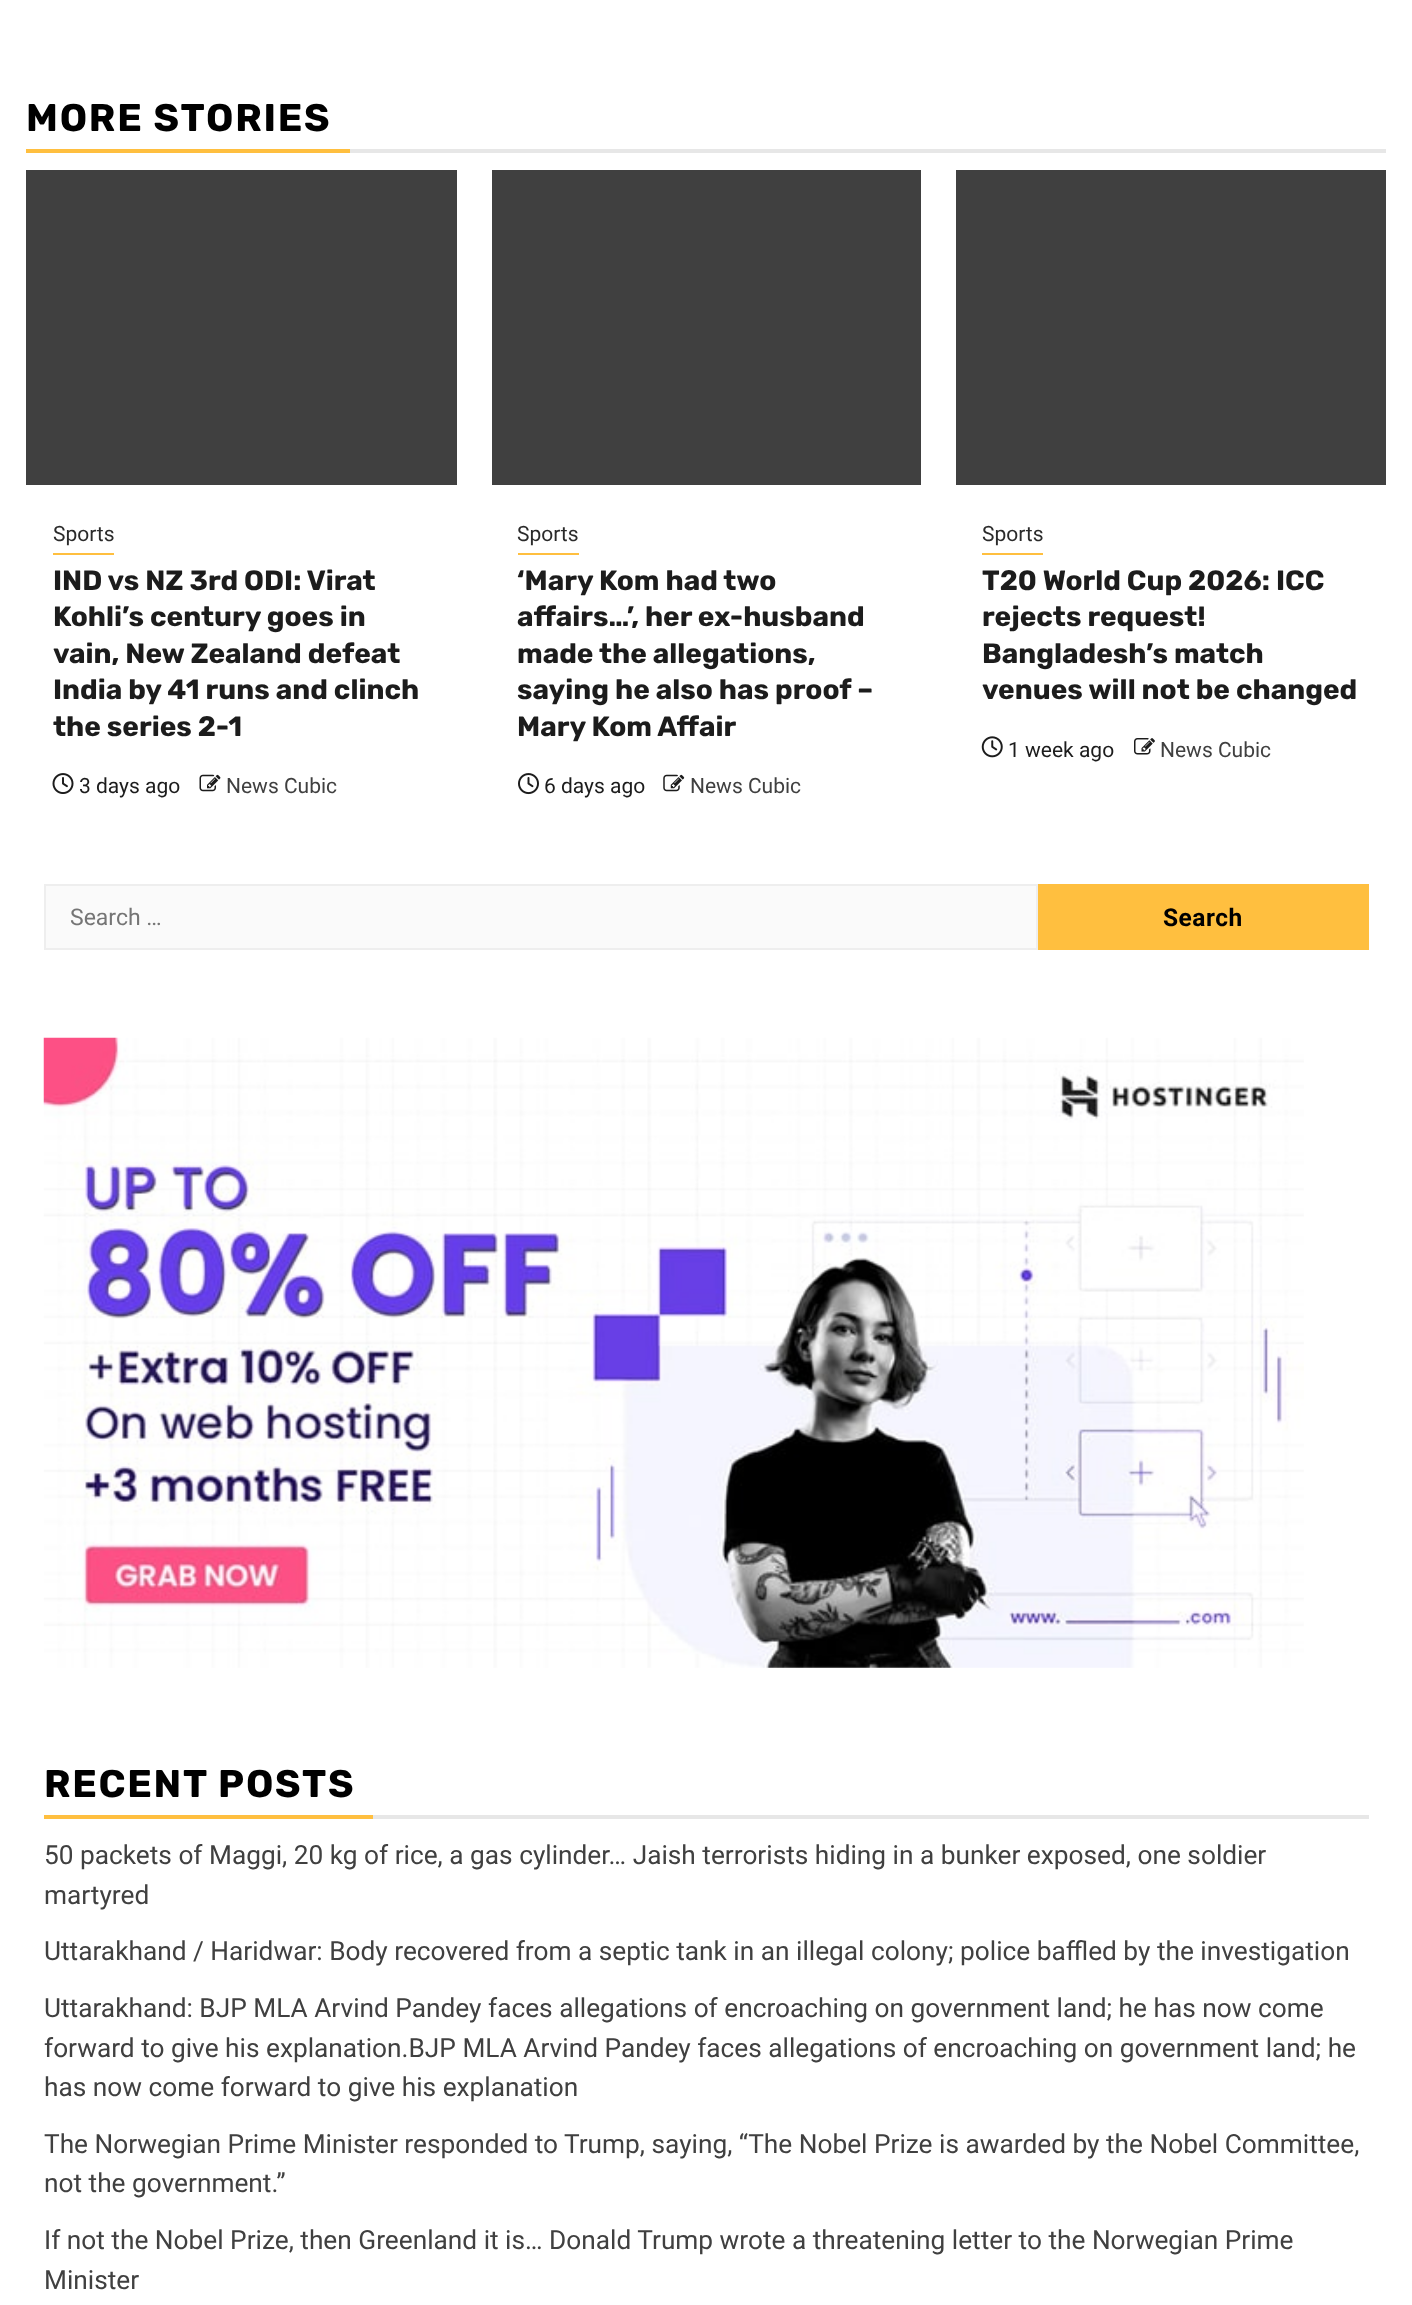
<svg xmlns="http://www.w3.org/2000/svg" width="1412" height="2305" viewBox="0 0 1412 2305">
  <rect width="100%" height="100%" fill="rgb(255,255,255)"/>
  <rect x="26" y="149" width="324" height="4" fill="rgb(255,191,63)"/>
  <text x="26" y="131" font-family="Rubik" font-size="38.5" font-weight="bold" letter-spacing="1.75" fill="rgb(0,0,0)">MORE STORIES</text>
  <rect x="350" y="149" width="1036" height="4" fill="rgb(231,231,231)"/>
  <rect x="26" y="170" width="431" height="315" fill="rgb(64,64,64)"/>
  <rect x="53" y="553" width="61" height="2" fill="rgb(255,191,63)"/>
  <text x="53" y="541" font-family="Roboto" font-size="21" fill="rgb(43,43,43)">Sports</text>
  <g font-family="Rubik" font-size="28" font-weight="bold" fill="rgb(28,28,28)">
    <text>
      <tspan x="53" y="590">IND vs NZ 3rd ODI: Virat</tspan>
      <tspan x="53" y="626">Kohli’s century goes in</tspan>
      <tspan x="53" y="663">vain, New Zealand defeat</tspan>
      <tspan x="53" y="699">India by 41 runs and clinch</tspan>
      <tspan x="53" y="736">the series 2-1</tspan>
    </text>
  </g>
  <image x="52" y="773" width="22" height="21" href="pic1.png"/>
  <text x="79" y="793" font-family="Roboto" font-size="21" fill="rgb(28,28,28)">3 days ago</text>
  <image x="199" y="774" width="22" height="18" href="pic2.png"/>
  <text x="226" y="793" font-family="Roboto" font-size="21" fill="rgb(64,64,64)">News Cubic</text>
  <rect x="492" y="170" width="429" height="315" fill="rgb(64,64,64)"/>
  <rect x="518" y="553" width="61" height="2" fill="rgb(255,191,63)"/>
  <text x="517" y="541" font-family="Roboto" font-size="21" fill="rgb(43,43,43)">Sports</text>
  <g font-family="Rubik" font-size="28" font-weight="bold" fill="rgb(28,28,28)">
    <text>
      <tspan x="517" y="590">‘Mary Kom had two</tspan>
      <tspan x="517" y="626">affairs…’, her ex-husband</tspan>
      <tspan x="517" y="663">made the allegations,</tspan>
      <tspan x="517" y="699">saying he also has proof –</tspan>
      <tspan x="517" y="736">Mary Kom Affair</tspan>
    </text>
  </g>
  <image x="518" y="773" width="21" height="22" href="pic3.png"/>
  <text x="544" y="793" font-family="Roboto" font-size="21" fill="rgb(28,28,28)">6 days ago</text>
  <image x="663" y="774" width="22" height="18" href="pic4.png"/>
  <text x="690" y="793" font-family="Roboto" font-size="21" fill="rgb(64,64,64)">News Cubic</text>
  <rect x="956" y="170" width="430" height="315" fill="rgb(64,64,64)"/>
  <rect x="982" y="553" width="61" height="2" fill="rgb(255,191,63)"/>
  <text x="982" y="541" font-family="Roboto" font-size="21" fill="rgb(43,43,43)">Sports</text>
  <g font-family="Rubik" font-size="28" font-weight="bold" fill="rgb(28,28,28)">
    <text>
      <tspan x="982" y="590">T20 World Cup 2026: ICC</tspan>
      <tspan x="982" y="626">rejects request!</tspan>
      <tspan x="982" y="663">Bangladesh’s match</tspan>
      <tspan x="982" y="699">venues will not be changed</tspan>
    </text>
  </g>
  <image x="981" y="736" width="22" height="22" href="pic5.png"/>
  <text x="1008" y="757" font-family="Roboto" font-size="21" fill="rgb(28,28,28)">1 week ago</text>
  <image x="1134" y="738" width="21" height="17" href="pic6.png"/>
  <text x="1160" y="757" font-family="Roboto" font-size="21" fill="rgb(64,64,64)">News Cubic</text>
  <rect x="45" y="885" width="992" height="64" fill="rgb(250,250,250)" stroke="rgb(238,238,238)" stroke-width="2"/>
  <text x="70" y="925" font-family="Roboto" font-size="23" fill="rgb(117,117,117)">Search …</text>
  <rect x="1038" y="884" width="331" height="66" fill="rgb(255,191,63)"/>
  <text x="1163" y="926" font-family="Roboto" font-size="24.5" font-weight="bold" letter-spacing="0.5" fill="rgb(0,0,0)">Search</text>
  <image x="43" y="1037" width="1261" height="631" href="pic7.png"/>
  <rect x="44" y="1815" width="329" height="4" fill="rgb(255,191,63)"/>
  <text x="44" y="1797" font-family="Rubik" font-size="38.5" font-weight="bold" letter-spacing="1.75" fill="rgb(0,0,0)">RECENT POSTS</text>
  <rect x="373" y="1815" width="996" height="4" fill="rgb(231,231,231)"/>
  <g font-family="Roboto" font-size="26.25" fill="rgb(64,64,64)">
    <text>
      <tspan x="44" y="1864">50 packets of Maggi, 20 kg of rice, a gas cylinder… Jaish terrorists hiding in a bunker exposed, one soldier</tspan>
      <tspan x="44" y="1904">martyred</tspan>
    </text>
    <text x="44" y="1960">Uttarakhand / Haridwar: Body recovered from a septic tank in an illegal colony; police baffled by the investigation</text>
    <text>
      <tspan x="44" y="2017">Uttarakhand: BJP MLA Arvind Pandey faces allegations of encroaching on government land; he has now come</tspan>
      <tspan x="44" y="2057">forward to give his explanation.BJP MLA Arvind Pandey faces allegations of encroaching on government land; he</tspan>
      <tspan x="44" y="2096">has now come forward to give his explanation</tspan>
    </text>
    <text>
      <tspan x="44" y="2153">The Norwegian Prime Minister responded to Trump, saying, “The Nobel Prize is awarded by the Nobel Committee,</tspan>
      <tspan x="44" y="2192">not the government.”</tspan>
    </text>
    <text>
      <tspan x="44" y="2249">If not the Nobel Prize, then Greenland it is… Donald Trump wrote a threatening letter to the Norwegian Prime</tspan>
      <tspan x="44" y="2289">Minister</tspan>
    </text>
  </g>
</svg>
